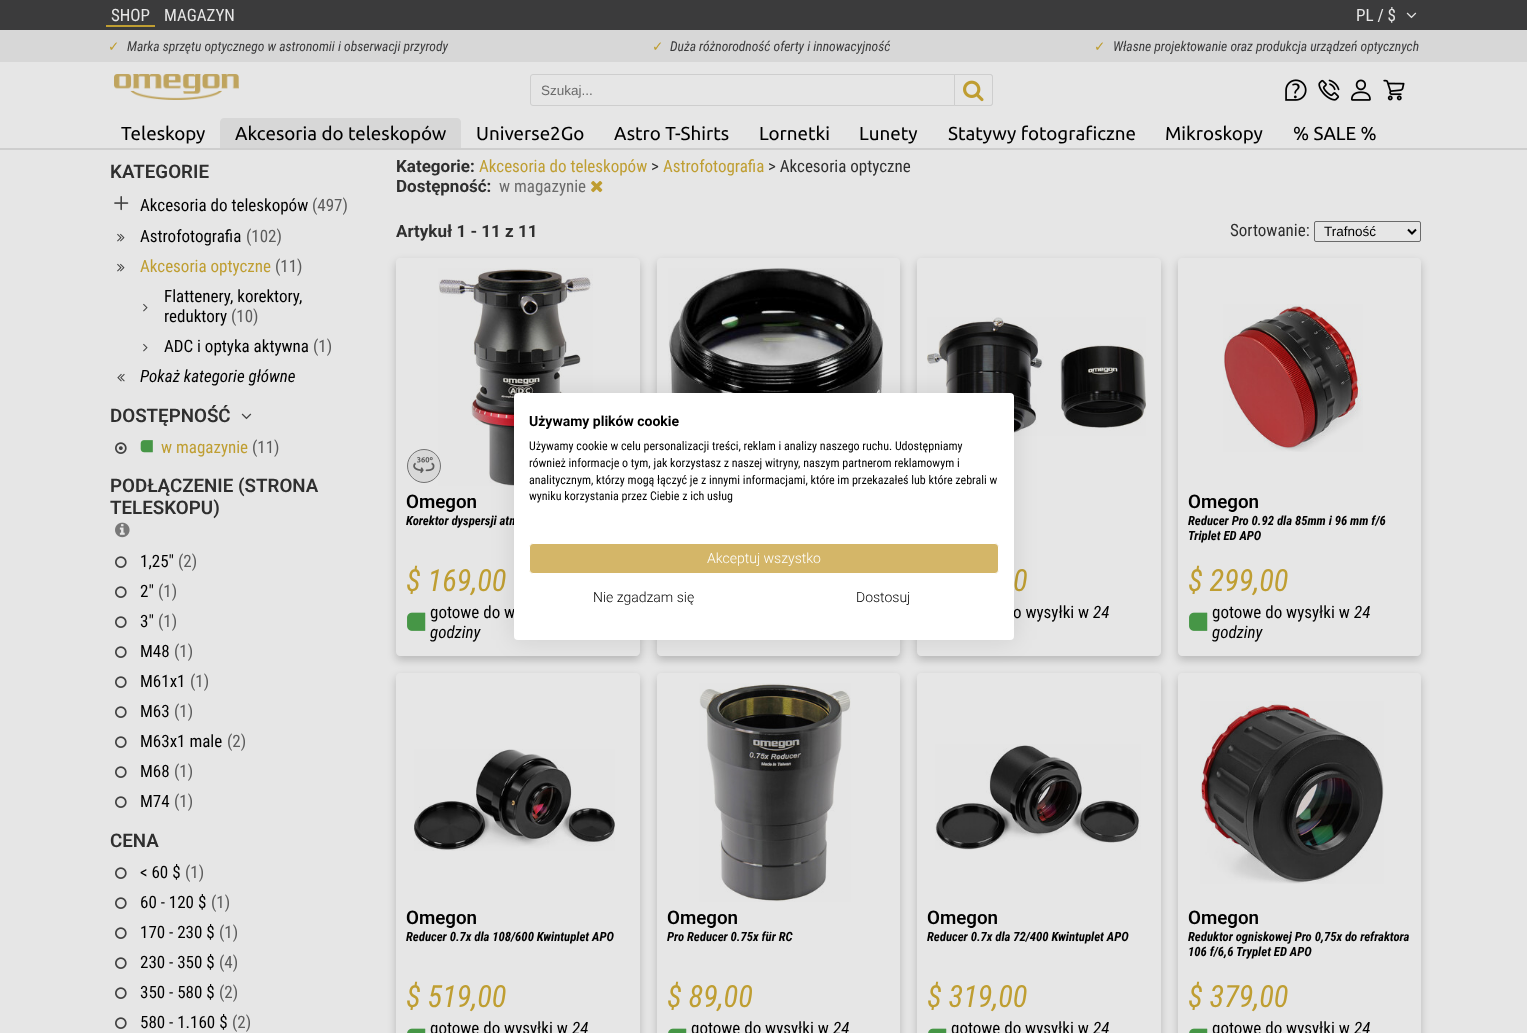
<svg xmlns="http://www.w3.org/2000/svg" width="1527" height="1033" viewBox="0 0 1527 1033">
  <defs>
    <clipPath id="clip1"><path d="M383 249H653V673H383ZM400 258H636C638 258 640 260 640 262V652C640 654 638 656 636 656H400C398 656 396 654 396 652V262C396 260 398 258 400 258Z" clip-rule="evenodd"/></clipPath>
    <clipPath id="clip2"><path d="M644 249H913V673H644ZM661 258H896C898 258 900 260 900 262V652C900 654 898 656 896 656H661C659 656 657 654 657 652V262C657 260 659 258 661 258Z" clip-rule="evenodd"/></clipPath>
    <clipPath id="clip3"><path d="M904 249H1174V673H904ZM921 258H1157C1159 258 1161 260 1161 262V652C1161 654 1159 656 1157 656H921C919 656 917 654 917 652V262C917 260 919 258 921 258Z" clip-rule="evenodd"/></clipPath>
    <clipPath id="clip4"><path d="M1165 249H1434V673H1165ZM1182 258H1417C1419 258 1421 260 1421 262V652C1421 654 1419 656 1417 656H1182C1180 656 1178 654 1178 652V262C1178 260 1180 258 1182 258Z" clip-rule="evenodd"/></clipPath>
    <clipPath id="clip5"><path d="M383 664H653V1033H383ZM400 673H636C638 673 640 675 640 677V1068C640 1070 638 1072 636 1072H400C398 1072 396 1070 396 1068V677C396 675 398 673 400 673Z" clip-rule="evenodd"/></clipPath>
    <clipPath id="clip6"><path d="M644 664H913V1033H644ZM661 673H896C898 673 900 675 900 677V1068C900 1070 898 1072 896 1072H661C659 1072 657 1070 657 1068V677C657 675 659 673 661 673Z" clip-rule="evenodd"/></clipPath>
    <clipPath id="clip7"><path d="M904 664H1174V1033H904ZM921 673H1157C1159 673 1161 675 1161 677V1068C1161 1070 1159 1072 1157 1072H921C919 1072 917 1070 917 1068V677C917 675 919 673 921 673Z" clip-rule="evenodd"/></clipPath>
    <clipPath id="clip8"><path d="M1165 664H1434V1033H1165ZM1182 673H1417C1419 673 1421 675 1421 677V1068C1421 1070 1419 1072 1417 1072H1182C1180 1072 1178 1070 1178 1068V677C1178 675 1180 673 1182 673Z" clip-rule="evenodd"/></clipPath>
  </defs>
  <rect width="100%" height="100%" fill="rgb(230,230,230)"/>
  <rect x="0" y="0" width="1527" height="30" fill="rgb(59,59,60)"/>
  <text x="111" y="21" font-family="Roboto Condensed" font-size="17" fill="rgb(230,230,230)">SHOP</text>
  <rect x="106" y="25" width="49" height="2" fill="rgb(191,158,50)"/>
  <g font-family="Roboto Condensed" font-size="17" fill="rgb(230,230,230)">
    <text x="164" y="21">MAGAZYN</text>
    <text x="1356" y="21">PL / $</text>
  </g>
  <image x="1406" y="12" width="11" height="7" href="pic1.png"/>
  <rect x="0" y="30" width="1527" height="32" fill="rgb(215,215,215)"/>
  <text x="108" y="51" font-family="DejaVu Sans" font-size="13.6" fill="rgb(191,158,50)">✓</text>
  <text x="127" y="51" font-family="Roboto Condensed" font-size="13.6" font-style="italic" fill="rgb(59,59,60)">Marka sprzętu optycznego w astronomii i obserwacji przyrody</text>
  <text x="652" y="51" font-family="DejaVu Sans" font-size="13.6" fill="rgb(191,158,50)">✓</text>
  <text x="670" y="51" font-family="Roboto Condensed" font-size="13.6" font-style="italic" fill="rgb(59,59,60)">Duża różnorodność oferty i innowacyjność</text>
  <text x="1094" y="51" font-family="DejaVu Sans" font-size="13.6" fill="rgb(191,158,50)">✓</text>
  <text x="1113" y="51" font-family="Roboto Condensed" font-size="13.6" font-style="italic" fill="rgb(59,59,60)">Własne projektowanie oraz produkcja urządzeń optycznych</text>
  <image x="114" y="74" width="125" height="26" href="pic2.png"/>
  <rect x="530.5" y="74.5" width="462" height="31" rx="2.5" fill="none" stroke="rgb(206,206,206)"/>
  <text x="541" y="95" font-family="Liberation Sans" font-size="13.5" fill="rgb(107,107,107)">Szukaj...</text>
  <path d="M954.5 74.5H990C991.5 74.5 992.5 75.5 992.5 77V103C992.5 104.5 991.5 105.5 990 105.5H954.5Z" fill="rgb(230,230,230)" stroke="rgb(206,206,206)"/>
  <image x="963" y="80" width="21" height="22" href="pic3.png"/>
  <image x="1285" y="79" width="22" height="22" href="pic4.png"/>
  <image x="1318" y="79" width="22" height="22" href="pic5.png"/>
  <image x="1351" y="79" width="20" height="22" href="pic6.png"/>
  <image x="1383" y="79" width="22" height="22" href="pic7.png"/>
  <text x="121" y="140" font-family="Ubuntu" font-size="18.75" fill="rgb(0,0,0)">Teleskopy</text>
  <path d="M224 118H457C459 118 461 120 461 122V148H220V122C220 120 222 118 224 118Z" fill="rgb(215,215,215)"/>
  <g font-family="Ubuntu" font-size="18.75" fill="rgb(0,0,0)">
    <text x="235" y="140">Akcesoria do teleskopów</text>
    <text x="476" y="140">Universe2Go</text>
    <text x="614" y="140">Astro T-Shirts</text>
    <text x="759" y="140">Lornetki</text>
    <text x="859" y="140">Lunety</text>
    <text x="948" y="140">Statywy fotograficzne</text>
    <text x="1165" y="140">Mikroskopy</text>
    <text x="1293" y="140">% SALE %</text>
  </g>
  <rect x="0" y="148" width="1527" height="2" fill="rgb(206,206,206)"/>
  <text x="110" y="178" font-family="Roboto" font-size="18.75" font-weight="600" fill="rgb(47,47,47)">KATEGORIE</text>
  <image x="114" y="196" width="15" height="15" href="pic8.png"/>
  <text x="140" y="211" font-family="Roboto Condensed" font-size="17" fill="rgb(0,0,0)">Akcesoria do teleskopów</text>
  <text x="312" y="211" font-family="Roboto Condensed" font-size="17" fill="rgb(92,92,92)">(497)</text>
  <image x="117" y="233" width="8" height="9" href="pic9.png"/>
  <text x="140" y="242" font-family="Roboto Condensed" font-size="17" fill="rgb(0,0,0)">Astrofotografia</text>
  <text x="246" y="242" font-family="Roboto Condensed" font-size="17" fill="rgb(92,92,92)">(102)</text>
  <image x="117" y="263" width="8" height="9" href="pic9.png"/>
  <text x="140" y="272" font-family="Roboto Condensed" font-size="17" fill="rgb(191,158,50)">Akcesoria optyczne</text>
  <text x="275" y="272" font-family="Roboto Condensed" font-size="17" fill="rgb(92,92,92)">(11)</text>
  <image x="143" y="303" width="5" height="9" href="pic10.png"/>
  <g font-family="Roboto Condensed" font-size="17" fill="rgb(0,0,0)">
    <text>
      <tspan x="164" y="302">Flattenery, korektory,</tspan>
      <tspan x="164" y="322">reduktory</tspan>
    </text>
  </g>
  <text x="231" y="322" font-family="Roboto Condensed" font-size="17" fill="rgb(92,92,92)">(10)</text>
  <image x="143" y="343" width="5" height="9" href="pic10.png"/>
  <text x="164" y="352" font-family="Roboto Condensed" font-size="17" fill="rgb(0,0,0)">ADC i optyka aktywna</text>
  <text x="313" y="352" font-family="Roboto Condensed" font-size="17" fill="rgb(92,92,92)">(1)</text>
  <image x="117" y="373" width="8" height="9" href="pic11.png"/>
  <text x="140" y="382" font-family="Roboto Condensed" font-size="17" font-style="italic" fill="rgb(0,0,0)">Pokaż kategorie główne</text>
  <text x="110" y="422" font-family="Roboto" font-size="18.75" font-weight="600" fill="rgb(47,47,47)">DOSTĘPNOŚĆ</text>
  <image x="241" y="413" width="11" height="7" href="pic12.png"/>
  <image x="115" y="442" width="12" height="12" href="pic13.png"/>
  <image x="140" y="440" width="13" height="13" href="pic14.png"/>
  <text x="161" y="453" font-family="Roboto Condensed" font-size="17" fill="rgb(191,158,50)">w magazynie</text>
  <text x="252" y="453" font-family="Roboto Condensed" font-size="17" fill="rgb(92,92,92)">(11)</text>
  <g font-family="Roboto" font-size="18.75" font-weight="600" fill="rgb(47,47,47)">
    <text>
      <tspan x="110" y="492">PODŁĄCZENIE (STRONA</tspan>
      <tspan x="110" y="514">TELESKOPU)</tspan>
    </text>
  </g>
  <image x="115" y="522" width="15" height="16" href="pic15.png"/>
  <image x="115" y="556" width="12" height="12" href="pic16.png"/>
  <text x="140" y="567" font-family="Roboto Condensed" font-size="17" fill="rgb(0,0,0)">1,25"</text>
  <text x="178" y="567" font-family="Roboto Condensed" font-size="17" fill="rgb(92,92,92)">(2)</text>
  <image x="115" y="586" width="12" height="12" href="pic16.png"/>
  <text x="140" y="597" font-family="Roboto Condensed" font-size="17" fill="rgb(0,0,0)">2"</text>
  <text x="158" y="597" font-family="Roboto Condensed" font-size="17" fill="rgb(92,92,92)">(1)</text>
  <image x="115" y="616" width="12" height="12" href="pic16.png"/>
  <text x="140" y="627" font-family="Roboto Condensed" font-size="17" fill="rgb(0,0,0)">3"</text>
  <text x="158" y="627" font-family="Roboto Condensed" font-size="17" fill="rgb(92,92,92)">(1)</text>
  <image x="115" y="646" width="12" height="12" href="pic16.png"/>
  <text x="140" y="657" font-family="Roboto Condensed" font-size="17" fill="rgb(0,0,0)">M48</text>
  <text x="174" y="657" font-family="Roboto Condensed" font-size="17" fill="rgb(92,92,92)">(1)</text>
  <image x="115" y="676" width="12" height="12" href="pic16.png"/>
  <text x="140" y="687" font-family="Roboto Condensed" font-size="17" fill="rgb(0,0,0)">M61x1</text>
  <text x="190" y="687" font-family="Roboto Condensed" font-size="17" fill="rgb(92,92,92)">(1)</text>
  <image x="115" y="706" width="12" height="12" href="pic16.png"/>
  <text x="140" y="717" font-family="Roboto Condensed" font-size="17" fill="rgb(0,0,0)">M63</text>
  <text x="174" y="717" font-family="Roboto Condensed" font-size="17" fill="rgb(92,92,92)">(1)</text>
  <image x="115" y="736" width="12" height="12" href="pic16.png"/>
  <text x="140" y="747" font-family="Roboto Condensed" font-size="17" fill="rgb(0,0,0)">M63x1 male</text>
  <text x="227" y="747" font-family="Roboto Condensed" font-size="17" fill="rgb(92,92,92)">(2)</text>
  <image x="115" y="766" width="12" height="12" href="pic16.png"/>
  <text x="140" y="777" font-family="Roboto Condensed" font-size="17" fill="rgb(0,0,0)">M68</text>
  <text x="174" y="777" font-family="Roboto Condensed" font-size="17" fill="rgb(92,92,92)">(1)</text>
  <image x="115" y="796" width="12" height="12" href="pic16.png"/>
  <text x="140" y="807" font-family="Roboto Condensed" font-size="17" fill="rgb(0,0,0)">M74</text>
  <text x="174" y="807" font-family="Roboto Condensed" font-size="17" fill="rgb(92,92,92)">(1)</text>
  <text x="110" y="847" font-family="Roboto" font-size="18.75" font-weight="600" fill="rgb(47,47,47)">CENA</text>
  <image x="115" y="867" width="12" height="12" href="pic16.png"/>
  <text x="140" y="878" font-family="Roboto Condensed" font-size="17" fill="rgb(0,0,0)">&lt; 60 $</text>
  <text x="185" y="878" font-family="Roboto Condensed" font-size="17" fill="rgb(92,92,92)">(1)</text>
  <image x="115" y="897" width="12" height="12" href="pic16.png"/>
  <text x="140" y="908" font-family="Roboto Condensed" font-size="17" fill="rgb(0,0,0)">60 - 120 $</text>
  <text x="211" y="908" font-family="Roboto Condensed" font-size="17" fill="rgb(92,92,92)">(1)</text>
  <image x="115" y="927" width="12" height="12" href="pic16.png"/>
  <text x="140" y="938" font-family="Roboto Condensed" font-size="17" fill="rgb(0,0,0)">170 - 230 $</text>
  <text x="219" y="938" font-family="Roboto Condensed" font-size="17" fill="rgb(92,92,92)">(1)</text>
  <image x="115" y="957" width="12" height="12" href="pic16.png"/>
  <text x="140" y="968" font-family="Roboto Condensed" font-size="17" fill="rgb(0,0,0)">230 - 350 $</text>
  <text x="219" y="968" font-family="Roboto Condensed" font-size="17" fill="rgb(92,92,92)">(4)</text>
  <image x="115" y="987" width="12" height="12" href="pic16.png"/>
  <text x="140" y="998" font-family="Roboto Condensed" font-size="17" fill="rgb(0,0,0)">350 - 580 $</text>
  <text x="219" y="998" font-family="Roboto Condensed" font-size="17" fill="rgb(92,92,92)">(2)</text>
  <image x="115" y="1017" width="12" height="12" href="pic16.png"/>
  <text x="140" y="1028" font-family="Roboto Condensed" font-size="17" fill="rgb(0,0,0)">580 - 1.160 $</text>
  <text x="232" y="1028" font-family="Roboto Condensed" font-size="17" fill="rgb(92,92,92)">(2)</text>
  <text x="396" y="172" font-family="Roboto" font-size="17" font-weight="bold" fill="rgb(47,47,47)">Kategorie:</text>
  <text x="479" y="172" font-family="Roboto Condensed" font-size="17" fill="rgb(191,158,50)">Akcesoria do teleskopów</text>
  <text x="651" y="172" font-family="Roboto Condensed" font-size="17" fill="rgb(47,47,47)">&gt;</text>
  <text x="663" y="172" font-family="Roboto Condensed" font-size="17" fill="rgb(191,158,50)">Astrofotografia</text>
  <text x="768" y="172" font-family="Roboto Condensed" font-size="17" fill="rgb(47,47,47)">&gt; Akcesoria optyczne</text>
  <text x="396" y="192" font-family="Roboto" font-size="17" font-weight="bold" fill="rgb(47,47,47)">Dostępność:</text>
  <text x="499" y="192" font-family="Roboto Condensed" font-size="17" fill="rgb(107,107,107)">w magazynie</text>
  <image x="591" y="181" width="12" height="12" href="pic17.png"/>
  <text x="396" y="237" font-family="Roboto" font-size="17" font-weight="bold" fill="rgb(47,47,47)">Artykuł 1 - 11 z 11</text>
  <text x="1230" y="236" font-family="Roboto Condensed" font-size="17" fill="rgb(47,47,47)">Sortowanie:</text>
  <rect x="1314.5" y="221.5" width="106" height="20" rx="1.5" fill="none" stroke="rgb(106,106,106)"/>
  <path d="M1408 229.5L1412 233.5L1416 229.5" fill="none" stroke="rgb(0,0,0)" stroke-width="2"/>
  <text x="1324" y="236" font-family="Liberation Sans" font-size="13.5" fill="rgb(0,0,0)">Trafność</text>
  <g clip-path="url(#clip1)">
    <rect x="396" y="262" width="244" height="398" rx="4" fill="rgba(0,0,0,0.2)" filter="blur(4px)"/>
  </g>
  <image x="438" y="268" width="155" height="218" href="pic19.png"/>
  <circle cx="424" cy="466" r="16.5" fill="rgb(216,216,216)" stroke="rgb(115,115,115)"/>
  <image x="413" y="457" width="22" height="16" href="pic18.png"/>
  <text x="406" y="508" font-family="Roboto" font-size="18.75" font-weight="600" fill="rgb(0,0,0)">Omegon</text>
  <text x="406" y="525" font-family="Roboto Condensed" font-size="12.75" font-weight="bold" font-style="italic" fill="rgb(0,0,0)">Korektor dyspersji atm</text>
  <text x="406" y="591" font-family="Roboto Condensed" font-size="30.5" font-style="italic" fill="rgb(191,158,50)">$ 169,00</text>
  <image x="407" y="612" width="19" height="19" href="pic20.png"/>
  <text x="430" y="618" font-family="Roboto Condensed" font-size="17" fill="rgb(0,0,0)">gotowe do w</text>
  <text x="430" y="638" font-family="Roboto Condensed" font-size="17" font-style="italic" fill="rgb(0,0,0)">godziny</text>
  <g clip-path="url(#clip2)">
    <rect x="657" y="262" width="243" height="398" rx="4" fill="rgba(0,0,0,0.2)" filter="blur(4px)"/>
  </g>
  <image x="668" y="268" width="216" height="125" href="pic21.png"/>
  <g clip-path="url(#clip3)">
    <rect x="917" y="262" width="244" height="398" rx="4" fill="rgba(0,0,0,0.2)" filter="blur(4px)"/>
  </g>
  <image x="927" y="317" width="219" height="119" href="pic22.png"/>
  <text x="1013" y="591" font-family="Roboto Condensed" font-size="30.5" font-style="italic" fill="rgb(191,158,50)">0</text>
  <text x="1013" y="618" font-family="Roboto Condensed" font-size="17" fill="rgb(0,0,0)">o wysyłki w</text>
  <text x="1093" y="618" font-family="Roboto Condensed" font-size="17" font-style="italic" fill="rgb(0,0,0)">24</text>
  <g clip-path="url(#clip4)">
    <rect x="1178" y="262" width="243" height="398" rx="4" fill="rgba(0,0,0,0.2)" filter="blur(4px)"/>
  </g>
  <image x="1223" y="304" width="140" height="148" href="pic23.png"/>
  <text x="1188" y="508" font-family="Roboto" font-size="18.75" font-weight="600" fill="rgb(0,0,0)">Omegon</text>
  <g font-family="Roboto Condensed" font-size="12.75" font-weight="bold" font-style="italic" fill="rgb(0,0,0)">
    <text>
      <tspan x="1188" y="525">Reducer Pro 0.92 dla 85mm i 96 mm f/6</tspan>
      <tspan x="1188" y="540">Triplet ED APO</tspan>
    </text>
  </g>
  <text x="1188" y="591" font-family="Roboto Condensed" font-size="30.5" font-style="italic" fill="rgb(191,158,50)">$ 299,00</text>
  <image x="1189" y="612" width="19" height="19" href="pic20.png"/>
  <text x="1212" y="618" font-family="Roboto Condensed" font-size="17" fill="rgb(0,0,0)">gotowe do wysyłki w</text>
  <g font-family="Roboto Condensed" font-size="17" font-style="italic" fill="rgb(0,0,0)">
    <text x="1354" y="618">24</text>
    <text x="1212" y="638">godziny</text>
  </g>
  <g clip-path="url(#clip5)">
    <rect x="396" y="677" width="244" height="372" rx="4" fill="rgba(0,0,0,0.2)" filter="blur(4px)"/>
  </g>
  <image x="414" y="749" width="201" height="102" href="pic24.png"/>
  <text x="406" y="924" font-family="Roboto" font-size="18.75" font-weight="600" fill="rgb(0,0,0)">Omegon</text>
  <text x="406" y="941" font-family="Roboto Condensed" font-size="12.75" font-weight="bold" font-style="italic" fill="rgb(0,0,0)">Reducer 0.7x dla 108/600 Kwintuplet APO</text>
  <text x="406" y="1007" font-family="Roboto Condensed" font-size="30.5" font-style="italic" fill="rgb(191,158,50)">$ 519,00</text>
  <image x="407" y="1028" width="19" height="5" href="pic25.png"/>
  <text x="430" y="1034" font-family="Roboto Condensed" font-size="17" fill="rgb(0,0,0)">gotowe do wysyłki w</text>
  <text x="572" y="1034" font-family="Roboto Condensed" font-size="17" font-style="italic" fill="rgb(0,0,0)">24</text>
  <g clip-path="url(#clip6)">
    <rect x="657" y="677" width="243" height="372" rx="4" fill="rgba(0,0,0,0.2)" filter="blur(4px)"/>
  </g>
  <image x="699" y="683" width="152" height="219" href="pic26.png"/>
  <text x="667" y="924" font-family="Roboto" font-size="18.75" font-weight="600" fill="rgb(0,0,0)">Omegon</text>
  <text x="667" y="941" font-family="Roboto Condensed" font-size="12.75" font-weight="bold" font-style="italic" fill="rgb(0,0,0)">Pro Reducer 0.75x für RC</text>
  <text x="667" y="1007" font-family="Roboto Condensed" font-size="30.5" font-style="italic" fill="rgb(191,158,50)">$ 89,00</text>
  <image x="668" y="1028" width="19" height="5" href="pic25.png"/>
  <text x="691" y="1034" font-family="Roboto Condensed" font-size="17" fill="rgb(0,0,0)">gotowe do wysyłki w</text>
  <text x="833" y="1034" font-family="Roboto Condensed" font-size="17" font-style="italic" fill="rgb(0,0,0)">24</text>
  <g clip-path="url(#clip7)">
    <rect x="917" y="677" width="244" height="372" rx="4" fill="rgba(0,0,0,0.2)" filter="blur(4px)"/>
  </g>
  <image x="935" y="744" width="206" height="106" href="pic27.png"/>
  <text x="927" y="924" font-family="Roboto" font-size="18.75" font-weight="600" fill="rgb(0,0,0)">Omegon</text>
  <text x="927" y="941" font-family="Roboto Condensed" font-size="12.75" font-weight="bold" font-style="italic" fill="rgb(0,0,0)">Reducer 0.7x dla 72/400 Kwintuplet APO</text>
  <text x="927" y="1007" font-family="Roboto Condensed" font-size="30.5" font-style="italic" fill="rgb(191,158,50)">$ 319,00</text>
  <image x="928" y="1028" width="19" height="5" href="pic25.png"/>
  <text x="951" y="1034" font-family="Roboto Condensed" font-size="17" fill="rgb(0,0,0)">gotowe do wysyłki w</text>
  <text x="1093" y="1034" font-family="Roboto Condensed" font-size="17" font-style="italic" fill="rgb(0,0,0)">24</text>
  <g clip-path="url(#clip8)">
    <rect x="1178" y="677" width="243" height="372" rx="4" fill="rgba(0,0,0,0.2)" filter="blur(4px)"/>
  </g>
  <image x="1200" y="701" width="184" height="183" href="pic28.png"/>
  <text x="1188" y="924" font-family="Roboto" font-size="18.75" font-weight="600" fill="rgb(0,0,0)">Omegon</text>
  <g font-family="Roboto Condensed" font-size="12.75" font-weight="bold" font-style="italic" fill="rgb(0,0,0)">
    <text>
      <tspan x="1188" y="941">Reduktor ogniskowej Pro 0,75x do refraktora</tspan>
      <tspan x="1188" y="956">106 f/6,6 Tryplet ED APO</tspan>
    </text>
  </g>
  <text x="1188" y="1007" font-family="Roboto Condensed" font-size="30.5" font-style="italic" fill="rgb(191,158,50)">$ 379,00</text>
  <image x="1189" y="1028" width="19" height="5" href="pic25.png"/>
  <text x="1212" y="1034" font-family="Roboto Condensed" font-size="17" fill="rgb(0,0,0)">gotowe do wysyłki w</text>
  <text x="1354" y="1034" font-family="Roboto Condensed" font-size="17" font-style="italic" fill="rgb(0,0,0)">24</text>
  <rect x="514" y="393" width="500" height="247" rx="4" fill="rgba(0,0,0,0.1)" filter="blur(12px)"/>
  <rect x="514" y="393" width="500" height="247" rx="4" fill="rgb(255,255,255)"/>
  <text x="529" y="426" font-family="Roboto" font-size="14" font-weight="bold" fill="rgb(0,0,0)">Używamy plików cookie</text>
  <g font-family="Roboto Condensed" font-size="12" fill="rgb(0,0,0)">
    <text>
      <tspan x="529" y="450">Używamy cookie w celu personalizacji treści, reklam i analizy naszego ruchu. Udostępniamy</tspan>
      <tspan x="529" y="467">również informacje o tym, jak korzystasz z naszej witryny, naszym partnerom reklamowym i</tspan>
      <tspan x="529" y="484">analitycznym, którzy mogą łączyć je z innymi informacjami, które im przekazałeś lub które zebrali w</tspan>
      <tspan x="529" y="500">wyniku korzystania przez Ciebie z ich usług</tspan>
    </text>
  </g>
  <rect x="529.5" y="543.5" width="469" height="30" rx="3.5" fill="rgb(212,182,104)" stroke="rgb(255,255,255)"/>
  <text x="707" y="563" font-family="Roboto" font-size="14" font-weight="300" fill="rgb(255,255,255)">Akceptuj wszystko</text>
  <g font-family="Roboto" font-size="14" font-weight="300" fill="rgb(0,0,0)">
    <text x="593" y="602">Nie zgadzam się</text>
    <text x="856" y="602">Dostosuj</text>
  </g>
</svg>
